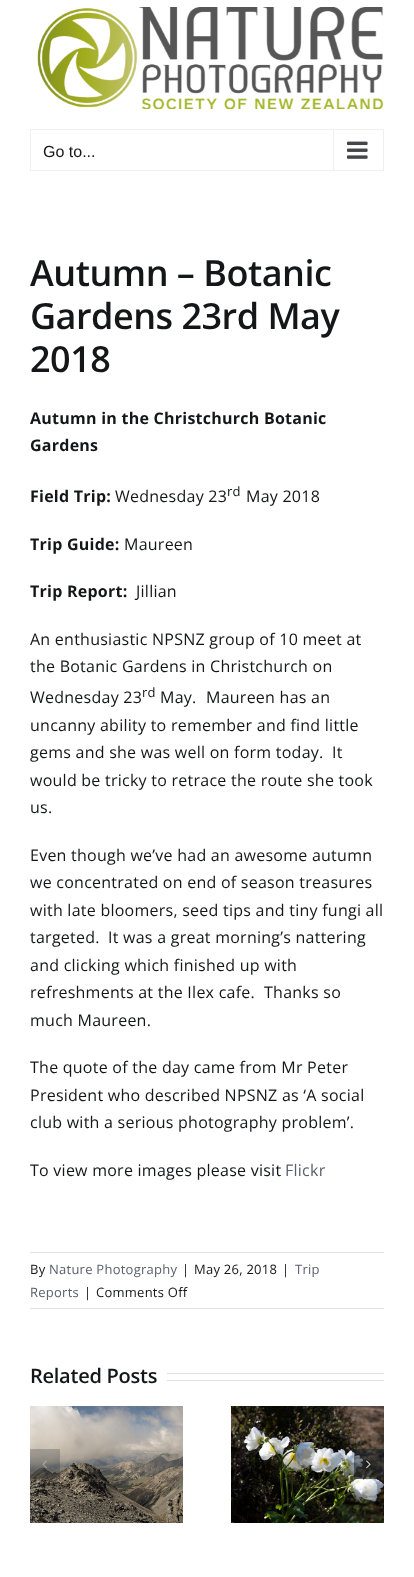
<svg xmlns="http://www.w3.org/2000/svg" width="414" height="1577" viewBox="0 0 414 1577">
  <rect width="100%" height="100%" fill="rgb(255,255,255)"/>
  <image x="37" y="7" width="347" height="102" href="pic1.png"/>
  <rect x="30.5" y="129.5" width="353" height="41" fill="none" stroke="rgb(241,240,236)"/>
  <text x="43" y="157" font-family="Liberation Sans" font-size="16" fill="rgb(20,22,23)">Go to...</text>
  <rect x="333" y="130" width="1" height="40" fill="rgb(241,240,236)"/>
  <image x="347" y="141" width="21" height="18" href="pic2.png"/>
  <g font-family="Open Sans" font-size="36" font-weight="600" letter-spacing="-0.5" fill="rgb(20,22,23)">
    <text>
      <tspan x="30" y="286">Autumn – Botanic</tspan>
      <tspan x="30" y="329">Gardens 23rd May</tspan>
      <tspan x="30" y="372">2018</tspan>
    </text>
  </g>
  <g font-family="Open Sans" font-size="16" font-weight="bold" letter-spacing="0.25" fill="rgb(20,22,23)">
    <text>
      <tspan x="30" y="424">Autumn in the Christchurch Botanic</tspan>
      <tspan x="30" y="451">Gardens</tspan>
    </text>
    <text x="30" y="502">Field Trip:</text>
  </g>
  <text x="115" y="502" font-family="Open Sans" font-size="16" letter-spacing="0.25" fill="rgb(20,22,23)">Wednesday 23</text>
  <text x="227" y="496" font-family="Open Sans" font-size="13" letter-spacing="0.25" fill="rgb(20,22,23)">rd</text>
  <text x="246" y="502" font-family="Open Sans" font-size="16" letter-spacing="0.25" fill="rgb(20,22,23)">May 2018</text>
  <text x="30" y="550" font-family="Open Sans" font-size="16" font-weight="bold" letter-spacing="0.25" fill="rgb(20,22,23)">Trip Guide:</text>
  <text x="124" y="550" font-family="Open Sans" font-size="16" letter-spacing="0.25" fill="rgb(20,22,23)">Maureen</text>
  <text x="30" y="597" font-family="Open Sans" font-size="16" font-weight="bold" letter-spacing="0.25" fill="rgb(20,22,23)">Trip Report:</text>
  <g font-family="Open Sans" font-size="16" letter-spacing="0.25" fill="rgb(20,22,23)">
    <text x="136" y="597">Jillian</text>
    <text>
      <tspan x="30" y="645">An enthusiastic NPSNZ group of 10 meet at</tspan>
      <tspan x="30" y="672">the Botanic Gardens in Christchurch on</tspan>
      <tspan x="30" y="703">Wednesday 23</tspan>
    </text>
  </g>
  <text x="142" y="697" font-family="Open Sans" font-size="13" letter-spacing="0.25" fill="rgb(20,22,23)">rd</text>
  <g font-family="Open Sans" font-size="16" letter-spacing="0.25" fill="rgb(20,22,23)">
    <text x="160" y="703">May.</text>
    <text x="206" y="703">Maureen has an</text>
    <text>
      <tspan x="30" y="731">uncanny ability to remember and find little</tspan>
      <tspan x="30" y="758">gems and she was well on form today.</tspan>
    </text>
    <text x="332" y="758">It</text>
    <text>
      <tspan x="30" y="786">would be tricky to retrace the route she took</tspan>
      <tspan x="30" y="813">us.</tspan>
    </text>
    <text>
      <tspan x="30" y="861">Even though we’ve had an awesome autumn</tspan>
      <tspan x="30" y="888">we concentrated on end of season treasures</tspan>
      <tspan x="30" y="916">with late bloomers, seed tips and tiny fungi all</tspan>
      <tspan x="30" y="943">targeted.</tspan>
    </text>
    <text x="108" y="943">It was a great morning’s nattering</text>
    <text>
      <tspan x="30" y="971">and clicking which finished up with</tspan>
      <tspan x="30" y="998">refreshments at the Ilex cafe.</tspan>
    </text>
    <text x="264" y="998">Thanks so</text>
    <text x="30" y="1026">much Maureen.</text>
    <text>
      <tspan x="30" y="1073">The quote of the day came from Mr Peter</tspan>
      <tspan x="30" y="1101">President who described NPSNZ as ‘A social</tspan>
      <tspan x="30" y="1128">club with a serious photography problem’.</tspan>
    </text>
    <text x="30" y="1176">To view more images please visit</text>
  </g>
  <text x="285" y="1176" font-family="Open Sans" font-size="16" letter-spacing="0.25" fill="rgb(89,95,107)">Flickr</text>
  <rect x="30" y="1252" width="354" height="1" fill="rgb(226,226,226)"/>
  <rect x="30" y="1308" width="354" height="1" fill="rgb(226,226,226)"/>
  <text x="30" y="1274" font-family="Open Sans" font-size="13" letter-spacing="0.25" fill="rgb(20,22,23)">By</text>
  <text x="49" y="1274" font-family="Open Sans" font-size="13" letter-spacing="0.25" fill="rgb(89,95,107)">Nature Photography</text>
  <g font-family="Open Sans" font-size="13" letter-spacing="0.25" fill="rgb(20,22,23)">
    <text x="182" y="1274">|</text>
    <text x="194" y="1274">May 26, 2018</text>
    <text x="282" y="1274">|</text>
  </g>
  <g font-family="Open Sans" font-size="13" letter-spacing="0.25" fill="rgb(89,95,107)">
    <text x="295" y="1274">Trip</text>
    <text x="30" y="1297">Reports</text>
  </g>
  <g font-family="Open Sans" font-size="13" letter-spacing="0.25" fill="rgb(20,22,23)">
    <text x="84" y="1297">|</text>
    <text x="96" y="1297">Comments Off</text>
  </g>
  <text x="30" y="1383" font-family="Open Sans" font-size="20" font-weight="600" letter-spacing="-0.25" fill="rgb(20,22,23)">Related Posts</text>
  <rect x="167" y="1373" width="217" height="1" fill="rgb(226,226,226)"/>
  <rect x="167" y="1380" width="217" height="1" fill="rgb(226,226,226)"/>
  <image x="30" y="1406" width="153" height="117" href="pic3.png"/>
  <image x="231" y="1406" width="153" height="117" href="pic4.png"/>
  <rect x="30" y="1449" width="30" height="30" fill="rgba(29,36,45,0.24)"/>
  <image x="42" y="1460" width="5" height="9" href="pic5.png"/>
  <rect x="354" y="1449" width="30" height="30" fill="rgba(29,36,45,0.56)"/>
  <image x="366" y="1460" width="5" height="9" href="pic6.png"/>
</svg>
